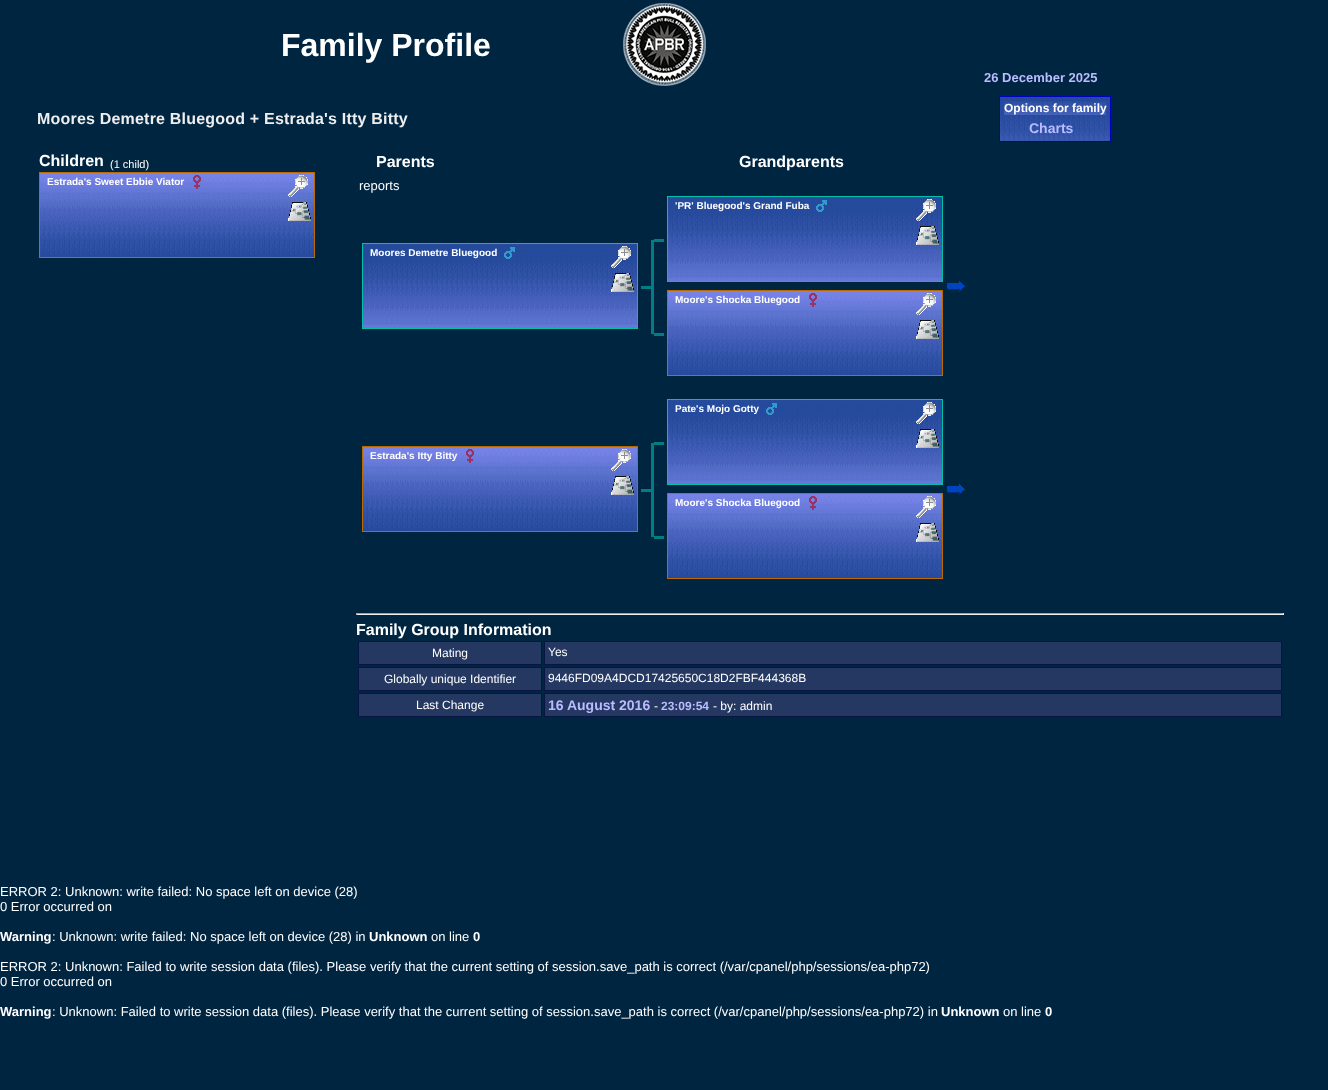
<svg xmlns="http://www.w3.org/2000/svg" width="1328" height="1090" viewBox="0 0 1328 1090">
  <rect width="100%" height="100%" fill="rgb(0,37,64)"/>
  <image x="623" y="3" width="83" height="83" href="pic1.png"/>
  <text x="281" y="56" font-family="Liberation Sans" font-size="32" font-weight="bold" fill="rgb(255,255,255)">Family Profile</text>
  <text x="984" y="82" font-family="Liberation Sans" font-size="13" font-weight="bold" fill="rgb(187,187,255)">26 December 2025</text>
  <text x="37" y="124" font-family="Liberation Sans" font-size="16" font-weight="bold" letter-spacing="0.2" fill="rgb(238,238,238)">Moores Demetre Bluegood + Estrada's Itty Bitty</text>
  <image x="1000" y="97" width="110" height="44" href="pic2.png"/>
  <rect x="999.5" y="96.5" width="111" height="45" fill="none" stroke="rgb(0,0,192)"/>
  <image x="1004" y="101" width="102" height="14" href="pic3.png"/>
  <text x="1004" y="112" font-family="Liberation Sans" font-size="12" font-weight="bold" fill="rgb(255,255,255)">Options for family</text>
  <text x="1029" y="133" font-family="Liberation Sans" font-size="14" font-weight="bold" fill="rgb(187,187,255)">Charts</text>
  <text x="39" y="166" font-family="Liberation Sans" font-size="16" font-weight="bold" fill="rgb(255,255,255)">Children</text>
  <text x="110" y="168" font-family="Liberation Sans" font-size="11" fill="rgb(255,255,255)">(1 child)</text>
  <image x="40" y="173" width="274" height="84" href="pic4.png"/>
  <rect x="39.5" y="172.5" width="275" height="85" fill="none" stroke="rgb(187,106,0)"/>
  <text x="47" y="185" font-family="Liberation Sans" font-size="10" font-weight="bold" fill="rgb(255,255,255)">Estrada's Sweet Ebbie Viator</text>
  <image x="193" y="175" width="8" height="14" href="pic5.png"/>
  <image x="288" y="175" width="20" height="22" href="pic6.png"/>
  <image x="288" y="202" width="23" height="19" href="pic7.png"/>
  <g font-family="Liberation Sans" font-size="16" font-weight="bold" fill="rgb(255,255,255)">
    <text x="376" y="167">Parents</text>
    <text x="739" y="167">Grandparents</text>
  </g>
  <text x="359" y="190" font-family="Liberation Sans" font-size="13" fill="rgb(255,255,255)">reports</text>
  <image x="668" y="197" width="274" height="84" href="pic8.png"/>
  <rect x="667.5" y="196.5" width="275" height="85" fill="none" stroke="rgb(0,192,170)"/>
  <text x="675" y="209" font-family="Liberation Sans" font-size="10" font-weight="bold" fill="rgb(255,255,255)">'PR' Bluegood's Grand Fuba</text>
  <image x="816" y="200" width="11" height="12" href="pic9.png"/>
  <image x="916" y="199" width="20" height="22" href="pic10.png"/>
  <image x="916" y="226" width="23" height="19" href="pic11.png"/>
  <image x="363" y="244" width="274" height="84" href="pic8.png"/>
  <rect x="362.5" y="243.5" width="275" height="85" fill="none" stroke="rgb(0,192,170)"/>
  <text x="370" y="256" font-family="Liberation Sans" font-size="10" font-weight="bold" fill="rgb(255,255,255)">Moores Demetre Bluegood</text>
  <image x="504" y="247" width="11" height="12" href="pic12.png"/>
  <image x="611" y="246" width="20" height="22" href="pic10.png"/>
  <image x="611" y="273" width="23" height="19" href="pic11.png"/>
  <rect x="651" y="240" width="3" height="94" fill="rgb(0,126,132)"/>
  <rect x="654" y="239" width="10" height="3" fill="rgb(0,126,132)"/>
  <rect x="641" y="286" width="10" height="3" fill="rgb(0,126,132)"/>
  <image x="947" y="281" width="18" height="11" href="pic13.png"/>
  <image x="668" y="291" width="274" height="84" href="pic4.png"/>
  <rect x="667.5" y="290.5" width="275" height="85" fill="none" stroke="rgb(187,106,0)"/>
  <text x="675" y="303" font-family="Liberation Sans" font-size="10" font-weight="bold" fill="rgb(255,255,255)">Moore's Shocka Bluegood</text>
  <image x="809" y="293" width="8" height="14" href="pic14.png"/>
  <image x="916" y="293" width="20" height="22" href="pic6.png"/>
  <image x="916" y="320" width="23" height="19" href="pic7.png"/>
  <rect x="654" y="333" width="10" height="3" fill="rgb(0,126,132)"/>
  <image x="668" y="400" width="274" height="84" href="pic8.png"/>
  <rect x="667.5" y="399.5" width="275" height="85" fill="none" stroke="rgb(0,192,170)"/>
  <text x="675" y="412" font-family="Liberation Sans" font-size="10" font-weight="bold" fill="rgb(255,255,255)">Pate's Mojo Gotty</text>
  <image x="766" y="403" width="11" height="12" href="pic9.png"/>
  <image x="916" y="402" width="20" height="22" href="pic10.png"/>
  <image x="916" y="429" width="23" height="19" href="pic11.png"/>
  <image x="363" y="447" width="274" height="84" href="pic4.png"/>
  <rect x="362.5" y="446.5" width="275" height="85" fill="none" stroke="rgb(187,106,0)"/>
  <text x="370" y="459" font-family="Liberation Sans" font-size="10" font-weight="bold" fill="rgb(255,255,255)">Estrada's Itty Bitty</text>
  <image x="466" y="449" width="8" height="14" href="pic5.png"/>
  <image x="611" y="449" width="20" height="22" href="pic6.png"/>
  <image x="611" y="476" width="23" height="19" href="pic7.png"/>
  <rect x="651" y="443" width="3" height="94" fill="rgb(0,126,132)"/>
  <rect x="654" y="442" width="10" height="3" fill="rgb(0,126,132)"/>
  <rect x="641" y="489" width="10" height="3" fill="rgb(0,126,132)"/>
  <image x="947" y="484" width="18" height="11" href="pic13.png"/>
  <image x="668" y="494" width="274" height="84" href="pic4.png"/>
  <rect x="667.5" y="493.5" width="275" height="85" fill="none" stroke="rgb(187,106,0)"/>
  <text x="675" y="506" font-family="Liberation Sans" font-size="10" font-weight="bold" fill="rgb(255,255,255)">Moore's Shocka Bluegood</text>
  <image x="809" y="496" width="8" height="14" href="pic14.png"/>
  <image x="916" y="496" width="20" height="22" href="pic6.png"/>
  <image x="916" y="523" width="23" height="19" href="pic7.png"/>
  <rect x="654" y="536" width="10" height="3" fill="rgb(0,126,132)"/>
  <rect x="356" y="613" width="928" height="1" fill="rgb(159,159,159)"/>
  <rect x="1283" y="613" width="1" height="2" fill="rgb(238,238,238)"/>
  <rect x="356" y="614" width="928" height="1" fill="rgb(238,238,238)"/>
  <rect x="356" y="613" width="1" height="2" fill="rgb(159,159,159)"/>
  <text x="356" y="635" font-family="Liberation Sans" font-size="16" font-weight="bold" fill="rgb(255,255,255)">Family Group Information</text>
  <rect x="358.5" y="641.5" width="183" height="23" fill="rgb(37,56,98)" stroke="rgb(9,21,66)"/>
  <text x="432" y="657" font-family="Liberation Sans" font-size="12" fill="rgb(255,255,255)">Mating</text>
  <rect x="544.5" y="641.5" width="737" height="23" fill="rgb(37,56,98)" stroke="rgb(9,21,66)"/>
  <text x="548" y="656" font-family="Liberation Sans" font-size="12" fill="rgb(255,255,255)">Yes</text>
  <rect x="358.5" y="667.5" width="183" height="23" fill="rgb(37,56,98)" stroke="rgb(9,21,66)"/>
  <text x="384" y="683" font-family="Liberation Sans" font-size="12" fill="rgb(255,255,255)">Globally unique Identifier</text>
  <rect x="544.5" y="667.5" width="737" height="23" fill="rgb(37,56,98)" stroke="rgb(9,21,66)"/>
  <text x="548" y="682" font-family="Liberation Sans" font-size="12" fill="rgb(255,255,255)">9446FD09A4DCD17425650C18D2FBF444368B</text>
  <rect x="358.5" y="693.5" width="183" height="23" fill="rgb(37,56,98)" stroke="rgb(9,21,66)"/>
  <text x="416" y="709" font-family="Liberation Sans" font-size="12" fill="rgb(255,255,255)">Last Change</text>
  <rect x="544.5" y="693.5" width="737" height="23" fill="rgb(37,56,98)" stroke="rgb(9,21,66)"/>
  <text x="548" y="710" font-family="Liberation Sans" font-size="14" font-weight="bold" fill="rgb(187,187,255)">16 August 2016</text>
  <text x="654" y="710" font-family="Liberation Sans" font-size="12" fill="rgb(255,255,255)">-</text>
  <text x="661" y="710" font-family="Liberation Sans" font-size="12" font-weight="bold" fill="rgb(187,187,255)">23:09:54</text>
  <text x="713" y="710" font-family="Liberation Sans" font-size="12" fill="rgb(255,255,255)">- by: admin</text>
  <g font-family="Liberation Sans" font-size="13" fill="rgb(255,255,255)">
    <text>
      <tspan x="0" y="896">ERROR 2: Unknown: write failed: No space left on device (28)</tspan>
      <tspan x="0" y="911">0 Error occurred on</tspan>
    </text>
  </g>
  <text x="0" y="941" font-family="Liberation Sans" font-size="13" font-weight="bold" fill="rgb(255,255,255)">Warning</text>
  <text x="52" y="941" font-family="Liberation Sans" font-size="13" fill="rgb(255,255,255)">: Unknown: write failed: No space left on device (28) in</text>
  <text x="369" y="941" font-family="Liberation Sans" font-size="13" font-weight="bold" fill="rgb(255,255,255)">Unknown</text>
  <text x="431" y="941" font-family="Liberation Sans" font-size="13" fill="rgb(255,255,255)">on line</text>
  <text x="473" y="941" font-family="Liberation Sans" font-size="13" font-weight="bold" fill="rgb(255,255,255)">0</text>
  <g font-family="Liberation Sans" font-size="13" fill="rgb(255,255,255)">
    <text>
      <tspan x="0" y="971">ERROR 2: Unknown: Failed to write session data (files). Please verify that the current setting of session.save_path is correct (/var/cpanel/php/sessions/ea-php72)</tspan>
      <tspan x="0" y="986">0 Error occurred on</tspan>
    </text>
  </g>
  <text x="0" y="1016" font-family="Liberation Sans" font-size="13" font-weight="bold" fill="rgb(255,255,255)">Warning</text>
  <text x="52" y="1016" font-family="Liberation Sans" font-size="13" fill="rgb(255,255,255)">: Unknown: Failed to write session data (files). Please verify that the current setting of session.save_path is correct (/var/cpanel/php/sessions/ea-php72) in</text>
  <text x="941" y="1016" font-family="Liberation Sans" font-size="13" font-weight="bold" fill="rgb(255,255,255)">Unknown</text>
  <text x="1003" y="1016" font-family="Liberation Sans" font-size="13" fill="rgb(255,255,255)">on line</text>
  <text x="1045" y="1016" font-family="Liberation Sans" font-size="13" font-weight="bold" fill="rgb(255,255,255)">0</text>
</svg>
